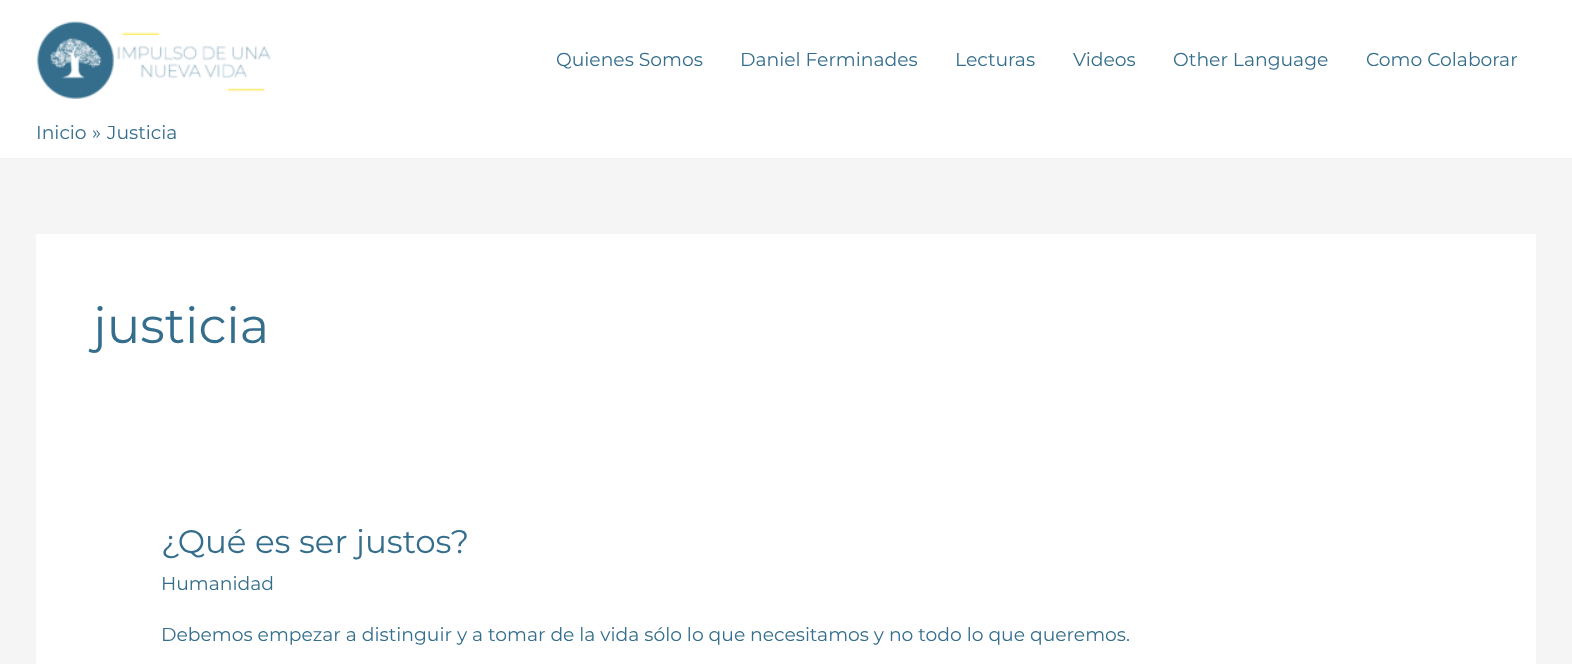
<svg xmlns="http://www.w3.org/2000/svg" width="1572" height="664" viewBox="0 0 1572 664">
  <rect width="100%" height="100%" fill="rgb(245,245,245)"/>
  <rect x="0" y="0" width="1572" height="158" fill="rgb(255,255,255)"/>
  <rect x="0" y="158" width="1572" height="1" fill="rgb(244,242,241)"/>
  <image x="36" y="21" width="235" height="78" href="pic1.png"/>
  <g font-family="Montserrat" font-size="18.75" font-weight="100" fill="rgb(52,110,140)">
    <text x="556" y="66">Quienes Somos</text>
    <text x="740" y="66">Daniel Ferminades</text>
    <text x="955" y="66">Lecturas</text>
    <text x="1073" y="66">Videos</text>
    <text x="1173" y="66">Other Language</text>
    <text x="1366" y="66">Como Colaborar</text>
    <text x="36" y="139">Inicio</text>
    <text x="92" y="139">»</text>
    <text x="107" y="139">Justicia</text>
  </g>
  <rect x="36" y="234" width="1500" height="430" fill="rgb(255,255,255)"/>
  <text x="93" y="343" font-family="Montserrat" font-size="50" font-weight="100" fill="rgb(52,110,140)">justicia</text>
  <text x="161" y="553" font-family="Montserrat" font-size="32.5" font-weight="100" fill="rgb(52,110,140)">¿Qué es ser justos?</text>
  <g font-family="Montserrat" font-size="18.75" font-weight="100" fill="rgb(52,110,140)">
    <text x="161" y="590">Humanidad</text>
    <text x="161" y="641">Debemos empezar a distinguir y a tomar de la vida sólo lo que necesitamos y no todo lo que queremos.</text>
  </g>
</svg>
